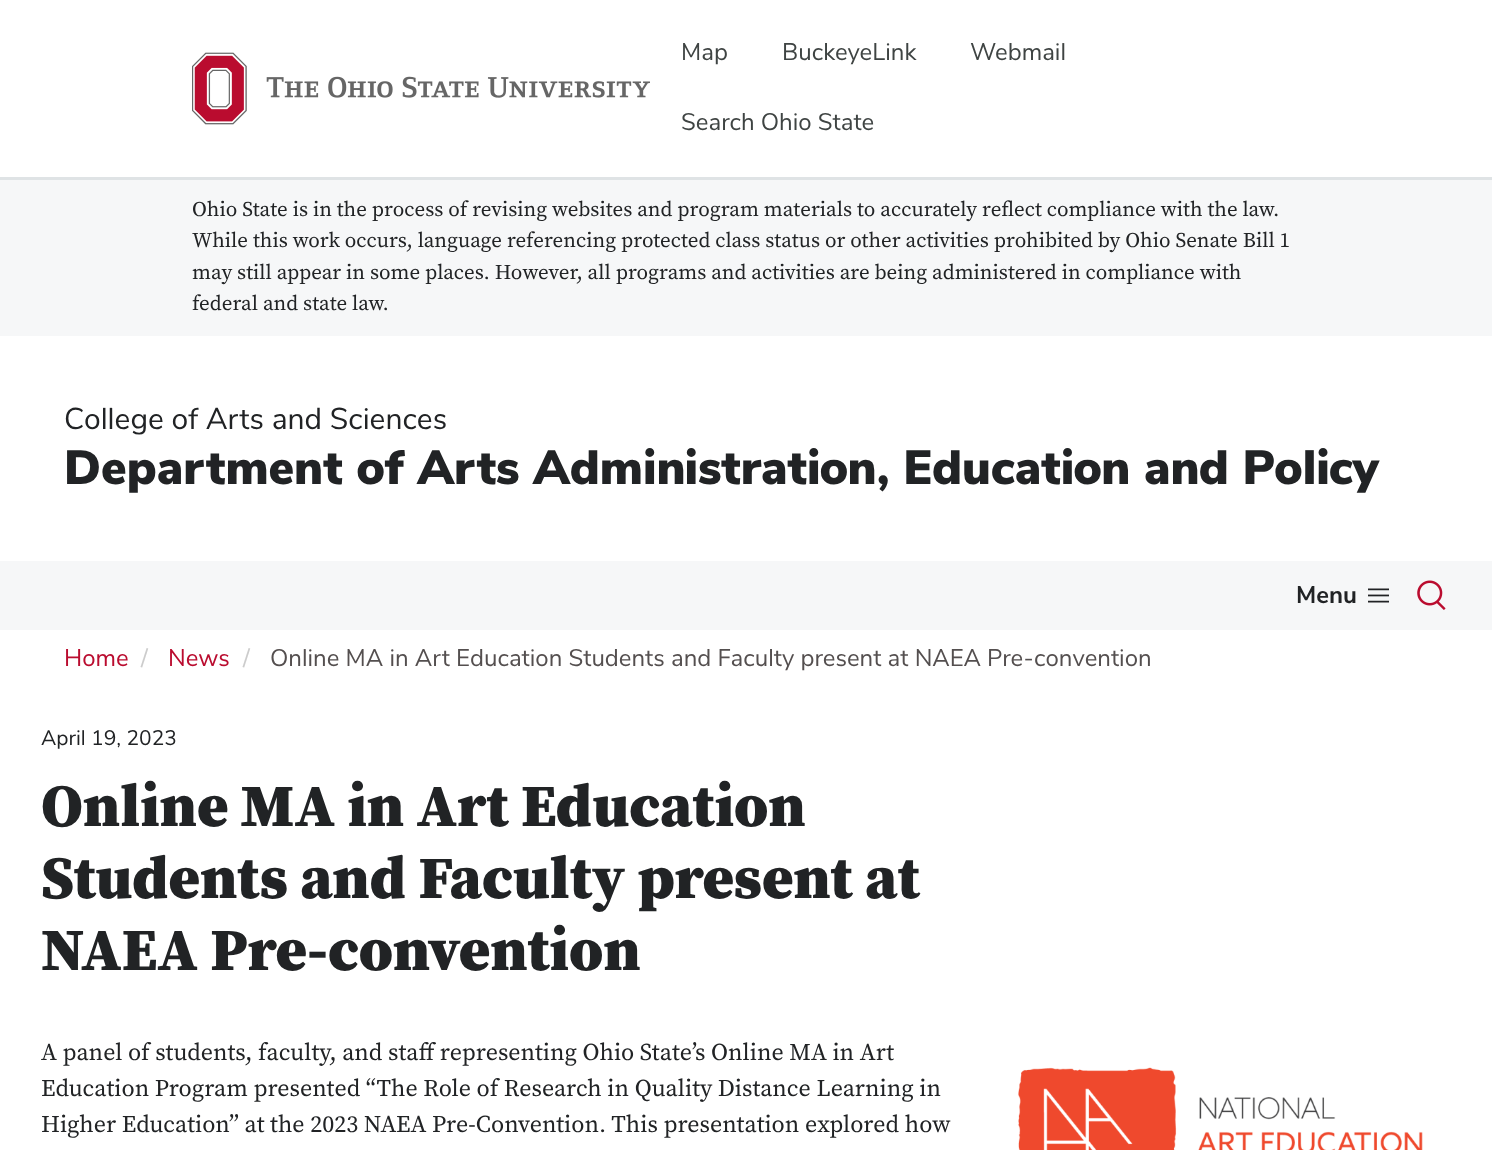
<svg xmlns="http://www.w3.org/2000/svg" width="1492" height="1150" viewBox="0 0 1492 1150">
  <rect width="100%" height="100%" fill="rgb(255,255,255)"/>
  <rect x="0" y="177" width="1492" height="3" fill="rgb(223,227,229)"/>
  <image x="192" y="52" width="458" height="73" href="pic1.png"/>
  <g font-family="'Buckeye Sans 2'" font-size="24" fill="rgb(63,68,67)">
    <text x="681" y="60">Map</text>
    <text x="782" y="60">BuckeyeLink</text>
    <text x="970" y="60">Webmail</text>
    <text x="681" y="130">Search Ohio State</text>
  </g>
  <rect x="0" y="180" width="1492" height="156" fill="rgb(246,247,248)"/>
  <g font-family="'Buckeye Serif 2'" font-size="21" fill="rgb(33,35,37)">
    <text>
      <tspan x="192" y="216">Ohio State is in the process of revising websites and program materials to accurately reflect compliance with the law.</tspan>
      <tspan x="192" y="247">While this work occurs, language referencing protected class status or other activities prohibited by Ohio Senate Bill 1</tspan>
      <tspan x="192" y="279">may still appear in some places. However, all programs and activities are being administered in compliance with</tspan>
      <tspan x="192" y="310">federal and state law.</tspan>
    </text>
  </g>
  <text x="64" y="429" font-family="'Buckeye Sans 2'" font-size="30" fill="rgb(33,35,37)">College of Arts and Sciences</text>
  <text x="64" y="484" font-family="'Buckeye Sans 2'" font-size="48" font-weight="900" fill="rgb(33,35,37)">Department of Arts Administration, Education and Policy</text>
  <rect x="0" y="561" width="1492" height="69" fill="rgb(246,247,248)"/>
  <text x="1296" y="603" font-family="'Buckeye Sans 2'" font-size="24" font-weight="bold" fill="rgb(33,35,37)">Menu</text>
  <image x="1368" y="588" width="21" height="15" href="pic2.png"/>
  <image x="1417" y="580" width="29" height="30" href="pic3.png"/>
  <text x="64" y="666" font-family="'Buckeye Sans 2'" font-size="24" fill="rgb(186,12,47)">Home</text>
  <text x="141" y="666" font-family="'Buckeye Sans 2'" font-size="24" fill="rgb(204,204,204)">/</text>
  <text x="168" y="666" font-family="'Buckeye Sans 2'" font-size="24" fill="rgb(186,12,47)">News</text>
  <text x="243" y="666" font-family="'Buckeye Sans 2'" font-size="24" fill="rgb(204,204,204)">/</text>
  <text x="270" y="666" font-family="'Buckeye Sans 2'" font-size="24" fill="rgb(84,79,79)">Online MA in Art Education Students and Faculty present at NAEA Pre-convention</text>
  <text x="41" y="745" font-family="'Buckeye Sans 2'" font-size="21" fill="rgb(33,35,37)">April 19, 2023</text>
  <g font-family="'Buckeye Serif 2'" font-size="60" font-weight="900" fill="rgb(33,35,37)">
    <text>
      <tspan x="41" y="826">Online MA in Art Education</tspan>
      <tspan x="41" y="898">Students and Faculty present at</tspan>
      <tspan x="41" y="970">NAEA Pre-convention</tspan>
    </text>
  </g>
  <g font-family="'Buckeye Serif 2'" font-size="24" fill="rgb(33,35,37)">
    <text>
      <tspan x="41" y="1060">A panel of students, faculty, and staff representing Ohio State’s Online MA in Art</tspan>
      <tspan x="41" y="1096">Education Program presented “The Role of Research in Quality Distance Learning in</tspan>
      <tspan x="41" y="1132">Higher Education” at the 2023 NAEA Pre-Convention. This presentation explored how</tspan>
    </text>
  </g>
  <image x="1018" y="1067" width="405" height="83" href="pic4.png"/>
</svg>
